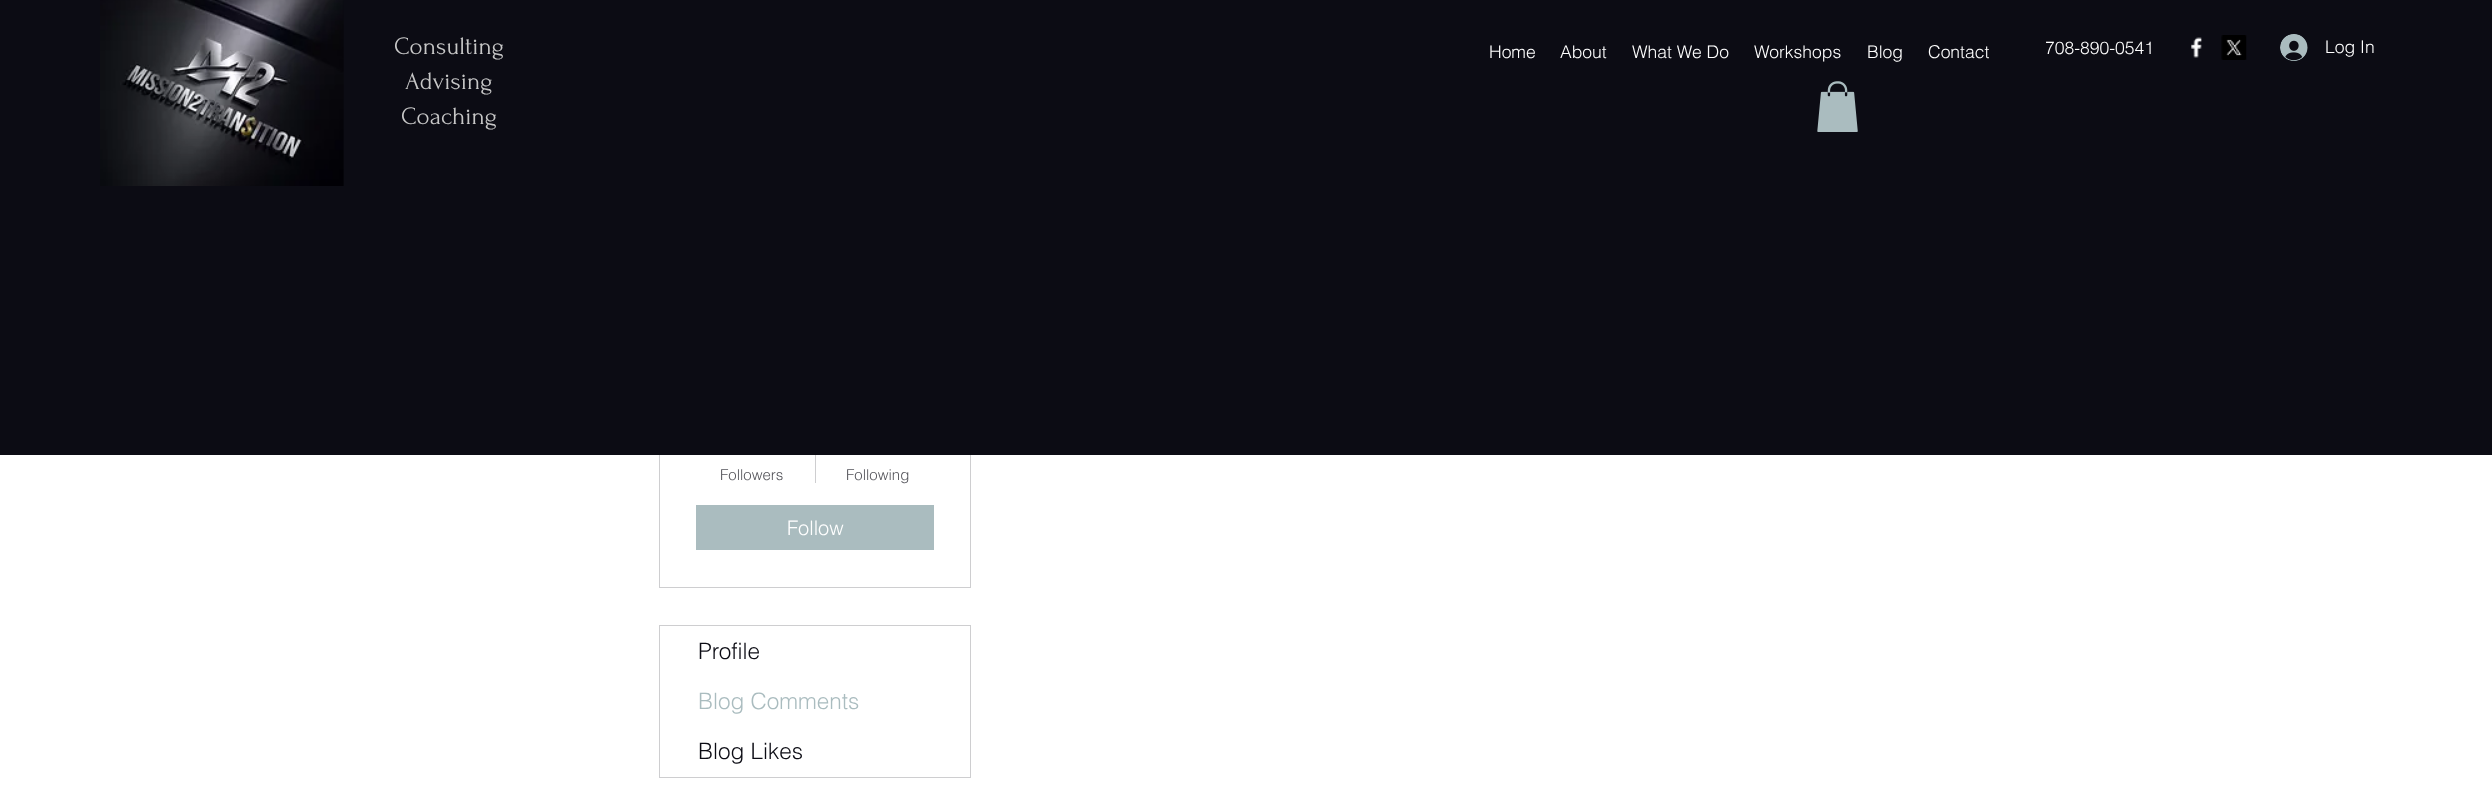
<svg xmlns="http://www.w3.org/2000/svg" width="2492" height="787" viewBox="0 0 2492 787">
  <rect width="100%" height="100%" fill="rgb(255,255,255)"/>
  <rect x="659.5" y="225.5" width="311" height="362" fill="none" stroke="rgb(206,206,208)"/>
  <rect x="0" y="0" width="2492" height="455" fill="rgb(12,12,20)"/>
  <image x="100" y="0" width="244" height="186" href="pic1.png"/>
  <g font-family="Forum" font-size="25" fill="rgb(199,199,199)">
    <text x="394" y="54">Consulting</text>
    <text x="405" y="89">Advising</text>
    <text x="401" y="124">Coaching</text>
  </g>
  <g font-family="helvetica" font-size="17.5" font-weight="300" fill="rgb(255,255,255)">
    <text x="1489" y="58">Home</text>
    <text x="1560" y="58">About</text>
    <text x="1632" y="58">What We Do</text>
    <text x="1754" y="58">Workshops</text>
    <text x="1867" y="58">Blog</text>
    <text x="1928" y="58">Contact</text>
    <text x="2045" y="54">708-890-0541</text>
  </g>
  <image x="2191" y="37" width="11" height="21" href="pic2.png"/>
  <image x="2221" y="35" width="26" height="25" href="pic3.png"/>
  <image x="2280" y="34" width="28" height="27" href="pic4.png"/>
  <text x="2325" y="53" font-family="helvetica" font-size="17.5" font-weight="300" fill="rgb(255,255,255)">Log In</text>
  <image x="1817" y="81" width="41" height="51" href="pic5.png"/>
  <text x="720" y="480" font-family="helvetica" font-size="15" font-weight="300" fill="rgb(85,85,91)">Followers</text>
  <rect x="815" y="455" width="1" height="28" fill="rgb(206,206,208)"/>
  <text x="846" y="480" font-family="helvetica" font-size="15" font-weight="300" fill="rgb(85,85,91)">Following</text>
  <rect x="696" y="505" width="238" height="45" fill="rgb(170,188,191)"/>
  <text x="787" y="535" font-family="helvetica" font-size="20" font-weight="300" fill="rgb(255,255,255)">Follow</text>
  <rect x="659.5" y="625.5" width="311" height="152" fill="none" stroke="rgb(206,206,208)"/>
  <text x="698" y="659" font-family="helvetica" font-size="22.5" font-weight="300" fill="rgb(12,12,20)">Profile</text>
  <text x="698" y="709" font-family="helvetica" font-size="22.5" font-weight="300" fill="rgb(170,188,191)">Blog Comments</text>
  <text x="698" y="759" font-family="helvetica" font-size="22.5" font-weight="300" fill="rgb(12,12,20)">Blog Likes</text>
</svg>
